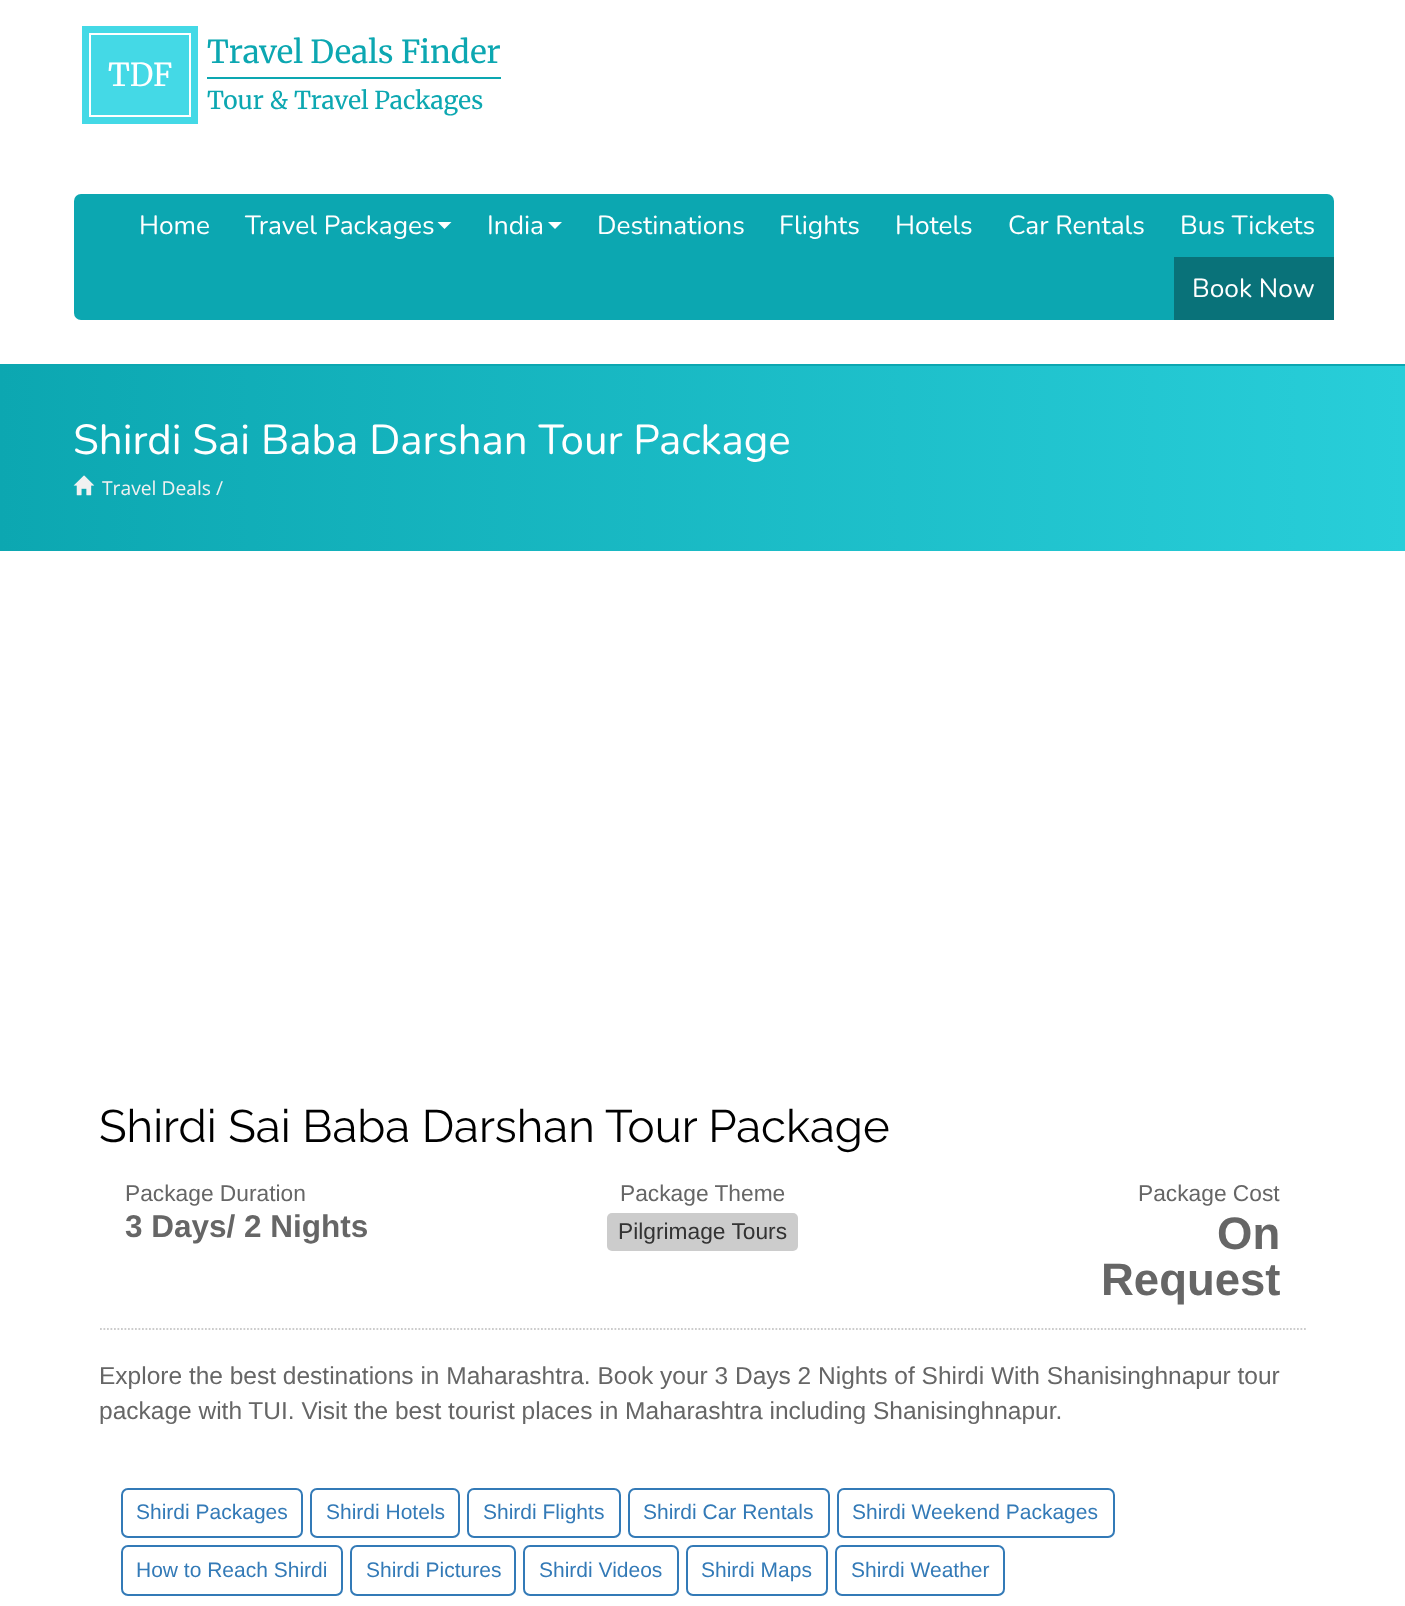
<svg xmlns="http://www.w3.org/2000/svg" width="1405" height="1606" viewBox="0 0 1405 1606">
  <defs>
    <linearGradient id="g1" gradientUnits="userSpaceOnUse" x1="1405" y1="459" x2="0" y2="459"><stop offset="0" stop-color="rgb(40,206,217)"/><stop offset="1" stop-color="rgb(12,167,177)"/></linearGradient>
  </defs>
  <rect width="100%" height="100%" fill="rgb(255,255,255)"/>
  <rect x="0" y="364" width="1405" height="2" fill="rgb(12,167,177)"/>
  <rect x="82" y="26" width="116" height="98" fill="rgb(68,217,230)"/>
  <rect x="90" y="34" width="100" height="82" fill="none" stroke="rgb(255,255,255)" stroke-width="2"/>
  <text x="108" y="86" font-family="Merriweather" font-size="31.5" font-weight="300" fill="rgb(255,255,255)">TDF</text>
  <text x="207" y="63" font-family="Merriweather" font-size="31.5" font-weight="300" fill="rgb(12,167,177)">Travel Deals Finder</text>
  <rect x="207" y="77" width="294" height="2" fill="rgb(12,167,177)"/>
  <text x="207" y="109" font-family="Merriweather" font-size="24.5" font-weight="300" fill="rgb(12,167,177)">Tour &amp; Travel Packages</text>
  <rect x="74" y="194" width="1260" height="126" rx="7" fill="rgb(12,167,177)"/>
  <g font-family="Nunito" font-size="26.25" font-weight="200" fill="rgb(255,255,255)">
    <text x="139" y="234">Home</text>
    <text x="245" y="234">Travel Packages</text>
  </g>
  <path d="M437.5 222H451.5L444.5 229Z" fill="rgb(255,255,255)"/>
  <text x="487" y="234" font-family="Nunito" font-size="26.25" font-weight="200" fill="rgb(255,255,255)">India</text>
  <path d="M548 222H562L555 229Z" fill="rgb(255,255,255)"/>
  <g font-family="Nunito" font-size="26.25" font-weight="200" fill="rgb(255,255,255)">
    <text x="597" y="234">Destinations</text>
    <text x="779" y="234">Flights</text>
    <text x="895" y="234">Hotels</text>
    <text x="1008" y="234">Car Rentals</text>
    <text x="1180" y="234">Bus Tickets</text>
  </g>
  <rect x="1174" y="257" width="160" height="63" fill="rgb(9,114,121)"/>
  <text x="1192" y="297" font-family="Nunito" font-size="26.25" font-weight="200" fill="rgb(255,255,255)">Book Now</text>
  <rect x="0" y="366" width="1405" height="185" fill="url(#g1)"/>
  <text x="73" y="454" font-family="Nunito" font-size="42" font-weight="200" fill="rgb(255,255,255)">Shirdi Sai Baba Darshan Tour Package</text>
  <image x="73" y="475" width="22" height="21" href="pic1.png"/>
  <text x="102" y="495" font-family="Open Sans" font-size="19.25" fill="rgb(241,241,241)">Travel Deals /</text>
  <text x="99" y="1142" font-family="Raleway" font-size="45.5" font-weight="100" fill="rgb(0,0,0)">Shirdi Sai Baba Darshan Tour Package</text>
  <text x="125" y="1201" font-family="Liberation Sans" font-size="22.75" fill="rgb(102,102,102)">Package Duration</text>
  <text x="125" y="1237" font-family="Liberation Sans" font-size="31.5" font-weight="bold" fill="rgb(102,102,102)">3 Days/ 2 Nights</text>
  <text x="620" y="1201" font-family="Liberation Sans" font-size="22.75" fill="rgb(102,102,102)">Package Theme</text>
  <rect x="607" y="1213" width="191" height="38" rx="5" fill="rgb(204,204,204)"/>
  <text x="618" y="1239" font-family="Liberation Sans" font-size="22.75" fill="rgb(51,51,51)">Pilgrimage Tours</text>
  <text x="1138" y="1201" font-family="Liberation Sans" font-size="22.75" fill="rgb(102,102,102)">Package Cost</text>
  <g font-family="Liberation Sans" font-size="45.5" font-weight="bold" fill="rgb(102,102,102)">
    <text x="1217" y="1249">On</text>
    <text x="1101" y="1295">Request</text>
  </g>
  <path d="M100 1329H1307" fill="none" stroke="rgb(204,204,204)" stroke-width="1.8" stroke-dasharray="1.75 1.75"/>
  <g font-family="Liberation Sans" font-size="24.5" fill="rgb(102,102,102)">
    <text>
      <tspan x="99" y="1384">Explore the best destinations in Maharashtra. Book your 3 Days 2 Nights of Shirdi With Shanisinghnapur tour</tspan>
      <tspan x="99" y="1419">package with TUI. Visit the best tourist places in Maharashtra including Shanisinghnapur.</tspan>
    </text>
  </g>
  <rect x="122" y="1489" width="180" height="48" rx="6" fill="none" stroke="rgb(51,122,183)" stroke-width="2"/>
  <text x="136" y="1519" font-family="Liberation Sans" font-size="21" fill="rgb(51,122,183)">Shirdi Packages</text>
  <rect x="311" y="1489" width="148" height="48" rx="6" fill="none" stroke="rgb(51,122,183)" stroke-width="2"/>
  <text x="326" y="1519" font-family="Liberation Sans" font-size="21" fill="rgb(51,122,183)">Shirdi Hotels</text>
  <rect x="468" y="1489" width="152" height="48" rx="6" fill="none" stroke="rgb(51,122,183)" stroke-width="2"/>
  <text x="483" y="1519" font-family="Liberation Sans" font-size="21" fill="rgb(51,122,183)">Shirdi Flights</text>
  <rect x="629" y="1489" width="200" height="48" rx="6" fill="none" stroke="rgb(51,122,183)" stroke-width="2"/>
  <text x="643" y="1519" font-family="Liberation Sans" font-size="21" fill="rgb(51,122,183)">Shirdi Car Rentals</text>
  <rect x="838" y="1489" width="276" height="48" rx="6" fill="none" stroke="rgb(51,122,183)" stroke-width="2"/>
  <text x="852" y="1519" font-family="Liberation Sans" font-size="21" fill="rgb(51,122,183)">Shirdi Weekend Packages</text>
  <rect x="122" y="1546" width="220" height="49" rx="6" fill="none" stroke="rgb(51,122,183)" stroke-width="2"/>
  <text x="136" y="1577" font-family="Liberation Sans" font-size="21" fill="rgb(51,122,183)">How to Reach Shirdi</text>
  <rect x="351" y="1546" width="164" height="49" rx="6" fill="none" stroke="rgb(51,122,183)" stroke-width="2"/>
  <text x="366" y="1577" font-family="Liberation Sans" font-size="21" fill="rgb(51,122,183)">Shirdi Pictures</text>
  <rect x="524" y="1546" width="154" height="49" rx="6" fill="none" stroke="rgb(51,122,183)" stroke-width="2"/>
  <text x="539" y="1577" font-family="Liberation Sans" font-size="21" fill="rgb(51,122,183)">Shirdi Videos</text>
  <rect x="687" y="1546" width="140" height="49" rx="6" fill="none" stroke="rgb(51,122,183)" stroke-width="2"/>
  <text x="701" y="1577" font-family="Liberation Sans" font-size="21" fill="rgb(51,122,183)">Shirdi Maps</text>
  <rect x="836" y="1546" width="168" height="49" rx="6" fill="none" stroke="rgb(51,122,183)" stroke-width="2"/>
  <text x="851" y="1577" font-family="Liberation Sans" font-size="21" fill="rgb(51,122,183)">Shirdi Weather</text>
</svg>
